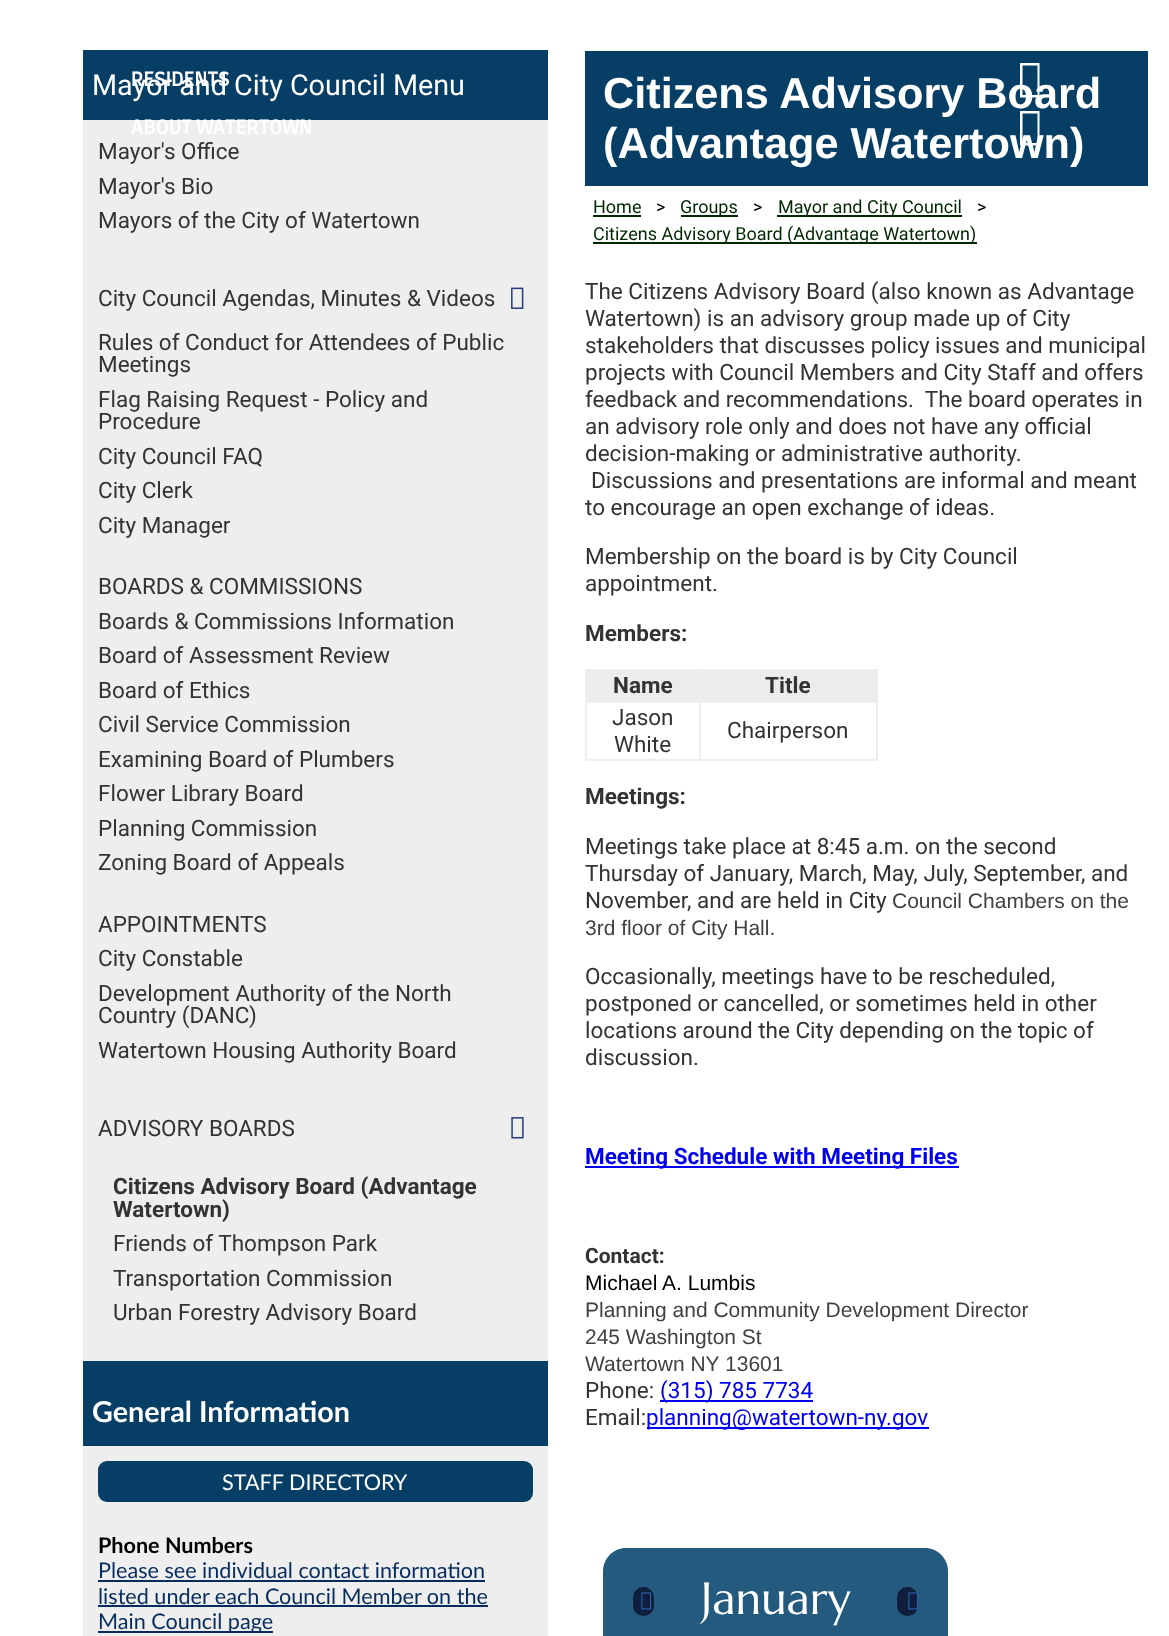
<svg xmlns="http://www.w3.org/2000/svg" width="1169" height="1636" viewBox="0 0 1169 1636">
  <rect width="100%" height="100%" fill="rgb(255,255,255)"/>
  <rect x="83" y="50" width="465" height="1396" fill="rgb(7,62,101)"/>
  <text x="92" y="95" font-family="Roboto" font-size="28.75" fill="rgb(255,255,255)">Mayor and City Council Menu</text>
  <text x="131" y="86" font-family="Farro" font-size="19.25" font-weight="500" fill="rgb(255,255,255)">RESIDENTS</text>
  <rect x="585" y="51" width="563" height="135" fill="rgb(7,62,101)"/>
  <path d="M1020 97.5V63H1039.5V97.5ZM1022.5 95H1037.5V65.5H1022.5Z" fill="rgb(255,255,255)"/>
  <rect x="83" y="120" width="465" height="1241" fill="rgb(238,238,238)"/>
  <text x="131" y="134" font-family="Farro" font-size="19.25" font-weight="500" fill="rgb(255,255,255)">ABOUT WATERTOWN</text>
  <path d="M1020 145.5V111H1039.5V145.5ZM1022.5 143H1037.5V113.5H1022.5Z" fill="rgb(255,255,255)"/>
  <g font-family="Roboto" font-size="22.5" fill="rgb(51,51,51)">
    <text>
      <tspan x="98" y="159">Mayor's Office</tspan>
      <tspan x="98" y="194">Mayor's Bio</tspan>
      <tspan x="98" y="228">Mayors of the City of Watertown</tspan>
    </text>
    <text x="98" y="306">City Council Agendas, Minutes &amp; Videos</text>
  </g>
  <image x="511" y="287" width="13" height="22" href="pic1.png"/>
  <g font-family="Roboto" font-size="22.5" fill="rgb(51,51,51)">
    <text>
      <tspan x="98" y="350">Rules of Conduct for Attendees of Public</tspan>
      <tspan x="98" y="372">Meetings</tspan>
      <tspan x="98" y="407">Flag Raising Request - Policy and</tspan>
      <tspan x="98" y="429">Procedure</tspan>
      <tspan x="98" y="464">City Council FAQ</tspan>
      <tspan x="98" y="498">City Clerk</tspan>
      <tspan x="98" y="533">City Manager</tspan>
    </text>
    <text>
      <tspan x="98" y="594">BOARDS &amp; COMMISSIONS</tspan>
      <tspan x="98" y="629">Boards &amp; Commissions Information</tspan>
      <tspan x="98" y="663">Board of Assessment Review</tspan>
      <tspan x="98" y="698">Board of Ethics</tspan>
      <tspan x="98" y="732">Civil Service Commission</tspan>
      <tspan x="98" y="767">Examining Board of Plumbers</tspan>
      <tspan x="98" y="801">Flower Library Board</tspan>
      <tspan x="98" y="836">Planning Commission</tspan>
      <tspan x="98" y="870">Zoning Board of Appeals</tspan>
    </text>
    <text>
      <tspan x="98" y="932">APPOINTMENTS</tspan>
      <tspan x="98" y="966">City Constable</tspan>
      <tspan x="98" y="1001">Development Authority of the North</tspan>
      <tspan x="98" y="1023">Country (DANC)</tspan>
      <tspan x="98" y="1058">Watertown Housing Authority Board</tspan>
    </text>
    <text x="98" y="1136">ADVISORY BOARDS</text>
  </g>
  <image x="511" y="1117" width="13" height="22" href="pic2.png"/>
  <g font-family="Roboto" font-size="22.5" font-weight="bold" fill="rgb(51,51,51)">
    <text>
      <tspan x="113" y="1194">Citizens Advisory Board (Advantage</tspan>
      <tspan x="113" y="1217">Watertown)</tspan>
    </text>
  </g>
  <g font-family="Roboto" font-size="22.5" fill="rgb(51,51,51)">
    <text>
      <tspan x="113" y="1251">Friends of Thompson Park</tspan>
      <tspan x="113" y="1286">Transportation Commission</tspan>
      <tspan x="113" y="1320">Urban Forestry Advisory Board</tspan>
    </text>
  </g>
  <text x="92" y="1422" font-family="Lato" font-size="28.75" font-weight="bold" fill="rgb(255,255,255)">General Information</text>
  <rect x="83" y="1446" width="465" height="190" fill="rgb(238,238,238)"/>
  <rect x="98" y="1461" width="435" height="41" rx="9" fill="rgb(7,62,101)"/>
  <text x="222" y="1490" font-family="Lato" font-size="21.6" fill="rgb(255,255,255)">STAFF DIRECTORY</text>
  <text x="98" y="1553" font-family="Lato" font-size="21.6" font-weight="bold" fill="rgb(0,0,0)">Phone Numbers</text>
  <text x="98" y="1578" font-family="Lato" font-size="21.6" fill="rgb(5,44,92)">Please see individual contact information</text>
  <rect x="98" y="1580" width="387" height="2" fill="rgb(5,44,92)"/>
  <text x="98" y="1604" font-family="Lato" font-size="21.6" fill="rgb(5,44,92)">listed under each Council Member on the</text>
  <rect x="98" y="1605" width="390" height="2" fill="rgb(5,44,92)"/>
  <rect x="98" y="1631" width="175" height="2" fill="rgb(5,44,92)"/>
  <text x="98" y="1629" font-family="Lato" font-size="21.6" fill="rgb(5,44,92)">Main Council page</text>
  <g font-family="Liberation Sans" font-size="43.25" font-weight="bold" fill="rgb(255,255,255)">
    <text>
      <tspan x="603" y="108">Citizens Advisory Board</tspan>
      <tspan x="603" y="158">(Advantage Watertown)</tspan>
    </text>
  </g>
  <text x="593" y="213" font-family="Roboto" font-size="18" fill="rgb(0,40,0)">Home</text>
  <rect x="593" y="215" width="48" height="2" fill="rgb(0,40,0)"/>
  <text x="656" y="213" font-family="Roboto" font-size="18" fill="rgb(0,0,0)">&gt;</text>
  <rect x="681" y="215" width="57" height="2" fill="rgb(0,40,0)"/>
  <text x="680" y="213" font-family="Roboto" font-size="18" fill="rgb(0,40,0)">Groups</text>
  <text x="753" y="213" font-family="Roboto" font-size="18" fill="rgb(0,0,0)">&gt;</text>
  <rect x="777" y="215" width="185" height="2" fill="rgb(0,40,0)"/>
  <text x="778" y="213" font-family="Roboto" font-size="18" fill="rgb(0,40,0)">Mayor and City Council</text>
  <text x="977" y="213" font-family="Roboto" font-size="18" fill="rgb(0,0,0)">&gt;</text>
  <rect x="593" y="242" width="384" height="2" fill="rgb(0,40,0)"/>
  <text x="593" y="240" font-family="Roboto" font-size="18" fill="rgb(0,40,0)">Citizens Advisory Board (Advantage Watertown)</text>
  <g font-family="Roboto" font-size="22.5" fill="rgb(51,51,51)">
    <text xml:space="preserve"><tspan x="585" y="299">The Citizens Advisory Board (also known as Advantage</tspan><tspan x="585" y="326">Watertown) is an advisory group made up of City</tspan><tspan x="585" y="353">stakeholders that discusses policy issues and municipal</tspan><tspan x="585" y="380">projects with Council Members and City Staff and offers</tspan><tspan x="585" y="407">feedback and recommendations.  The board operates in</tspan><tspan x="585" y="434">an advisory role only and does not have any official</tspan><tspan x="585" y="461">decision-making or administrative authority.</tspan></text>
    <text x="591" y="488">Discussions and presentations are informal and meant</text>
    <text x="585" y="515">to encourage an open exchange of ideas.</text>
    <text>
      <tspan x="585" y="564">Membership on the board is by City Council</tspan>
      <tspan x="585" y="591">appointment.</tspan>
    </text>
  </g>
  <text x="585" y="641" font-family="Roboto" font-size="22.5" font-weight="bold" fill="rgb(51,51,51)">Members:</text>
  <rect x="587" y="671" width="112" height="30" fill="rgb(236,236,236)"/>
  <rect x="699" y="669" width="179" height="2" fill="rgb(238,238,238)"/>
  <rect x="699" y="701" width="179" height="2" fill="rgb(238,238,238)"/>
  <rect x="876" y="701" width="2" height="60" fill="rgb(238,238,238)"/>
  <rect x="699" y="759" width="179" height="2" fill="rgb(238,238,238)"/>
  <rect x="699" y="701" width="2" height="60" fill="rgb(238,238,238)"/>
  <rect x="585" y="701" width="116" height="2" fill="rgb(238,238,238)"/>
  <rect x="699" y="669" width="2" height="33" fill="rgb(238,238,238)"/>
  <rect x="585" y="669" width="116" height="2" fill="rgb(238,238,238)"/>
  <rect x="585" y="759" width="116" height="2" fill="rgb(238,238,238)"/>
  <rect x="585" y="701" width="2" height="60" fill="rgb(238,238,238)"/>
  <rect x="585" y="669" width="2" height="33" fill="rgb(238,238,238)"/>
  <text x="613" y="693" font-family="Roboto" font-size="22.5" font-weight="bold" fill="rgb(51,51,51)">Name</text>
  <rect x="701" y="671" width="175" height="30" fill="rgb(236,236,236)"/>
  <rect x="876" y="669" width="2" height="33" fill="rgb(238,238,238)"/>
  <text x="765" y="693" font-family="Roboto" font-size="22.5" font-weight="bold" fill="rgb(51,51,51)">Title</text>
  <g font-family="Roboto" font-size="22.5" fill="rgb(51,51,51)">
    <text x="612" y="725">Jason</text>
    <text x="614" y="752">White</text>
    <text x="727" y="738">Chairperson</text>
  </g>
  <text x="585" y="804" font-family="Roboto" font-size="22.5" font-weight="bold" fill="rgb(51,51,51)">Meetings:</text>
  <g font-family="Roboto" font-size="22.5" fill="rgb(51,51,51)">
    <text>
      <tspan x="585" y="854">Meetings take place at 8:45 a.m. on the second</tspan>
      <tspan x="585" y="881">Thursday of January, March, May, July, September, and</tspan>
      <tspan x="585" y="908">November, and are held in City</tspan>
    </text>
  </g>
  <g font-family="Liberation Sans" font-size="21" fill="rgb(65,65,65)">
    <text x="892" y="908">Council Chambers on the</text>
    <text x="585" y="935">3rd floor of City Hall.</text>
  </g>
  <g font-family="Roboto" font-size="22.5" fill="rgb(51,51,51)">
    <text>
      <tspan x="585" y="984">Occasionally, meetings have to be rescheduled,</tspan>
      <tspan x="585" y="1011">postponed or cancelled, or sometimes held in other</tspan>
      <tspan x="585" y="1038">locations around the City depending on the topic of</tspan>
      <tspan x="585" y="1065">discussion.</tspan>
    </text>
  </g>
  <rect x="585" y="1166" width="374" height="2" fill="rgb(0,0,238)"/>
  <text x="585" y="1164" font-family="Roboto" font-size="22.5" font-weight="bold" fill="rgb(0,0,238)">Meeting Schedule with Meeting Files</text>
  <text x="585" y="1263" font-family="Roboto" font-size="21" font-weight="bold" fill="rgb(51,51,51)">Contact:</text>
  <text x="585" y="1290" font-family="Liberation Sans" font-size="21" fill="rgb(0,0,0)">Michael A. Lumbis</text>
  <g font-family="Liberation Sans" font-size="21" fill="rgb(65,65,65)">
    <text>
      <tspan x="585" y="1317">Planning and Community Development Director</tspan>
      <tspan x="585" y="1344">245 Washington St</tspan>
      <tspan x="585" y="1371">Watertown NY 13601</tspan>
    </text>
  </g>
  <text x="585" y="1398" font-family="Roboto" font-size="22.5" fill="rgb(51,51,51)">Phone:</text>
  <rect x="660" y="1400" width="153" height="2" fill="rgb(0,0,238)"/>
  <text x="660" y="1398" font-family="Roboto" font-size="22.5" fill="rgb(0,0,238)">(315) 785 7734</text>
  <text x="585" y="1425" font-family="Roboto" font-size="22.5" fill="rgb(51,51,51)">Email:</text>
  <rect x="647" y="1427" width="282" height="2" fill="rgb(0,0,238)"/>
  <text x="646" y="1425" font-family="Roboto" font-size="22.5" fill="rgb(0,0,238)">planning@watertown-ny.gov</text>
  <path d="M626 1548H925C937.5 1548 948 1558.5 948 1571V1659H603V1571C603 1558.5 613.5 1548 626 1548Z" fill="rgb(35,90,125)"/>
  <rect x="633" y="1587" width="21" height="29" rx="10.5" fill="rgb(15,30,60)"/>
  <image x="641" y="1592" width="11" height="18" href="pic3.png"/>
  <text x="701" y="1614" font-family="Marcellus" font-size="45" fill="rgb(255,255,255)">January</text>
  <rect x="897" y="1587" width="21" height="29" rx="10.5" fill="rgb(15,30,60)"/>
  <image x="908" y="1592" width="11" height="18" href="pic4.png"/>
</svg>
